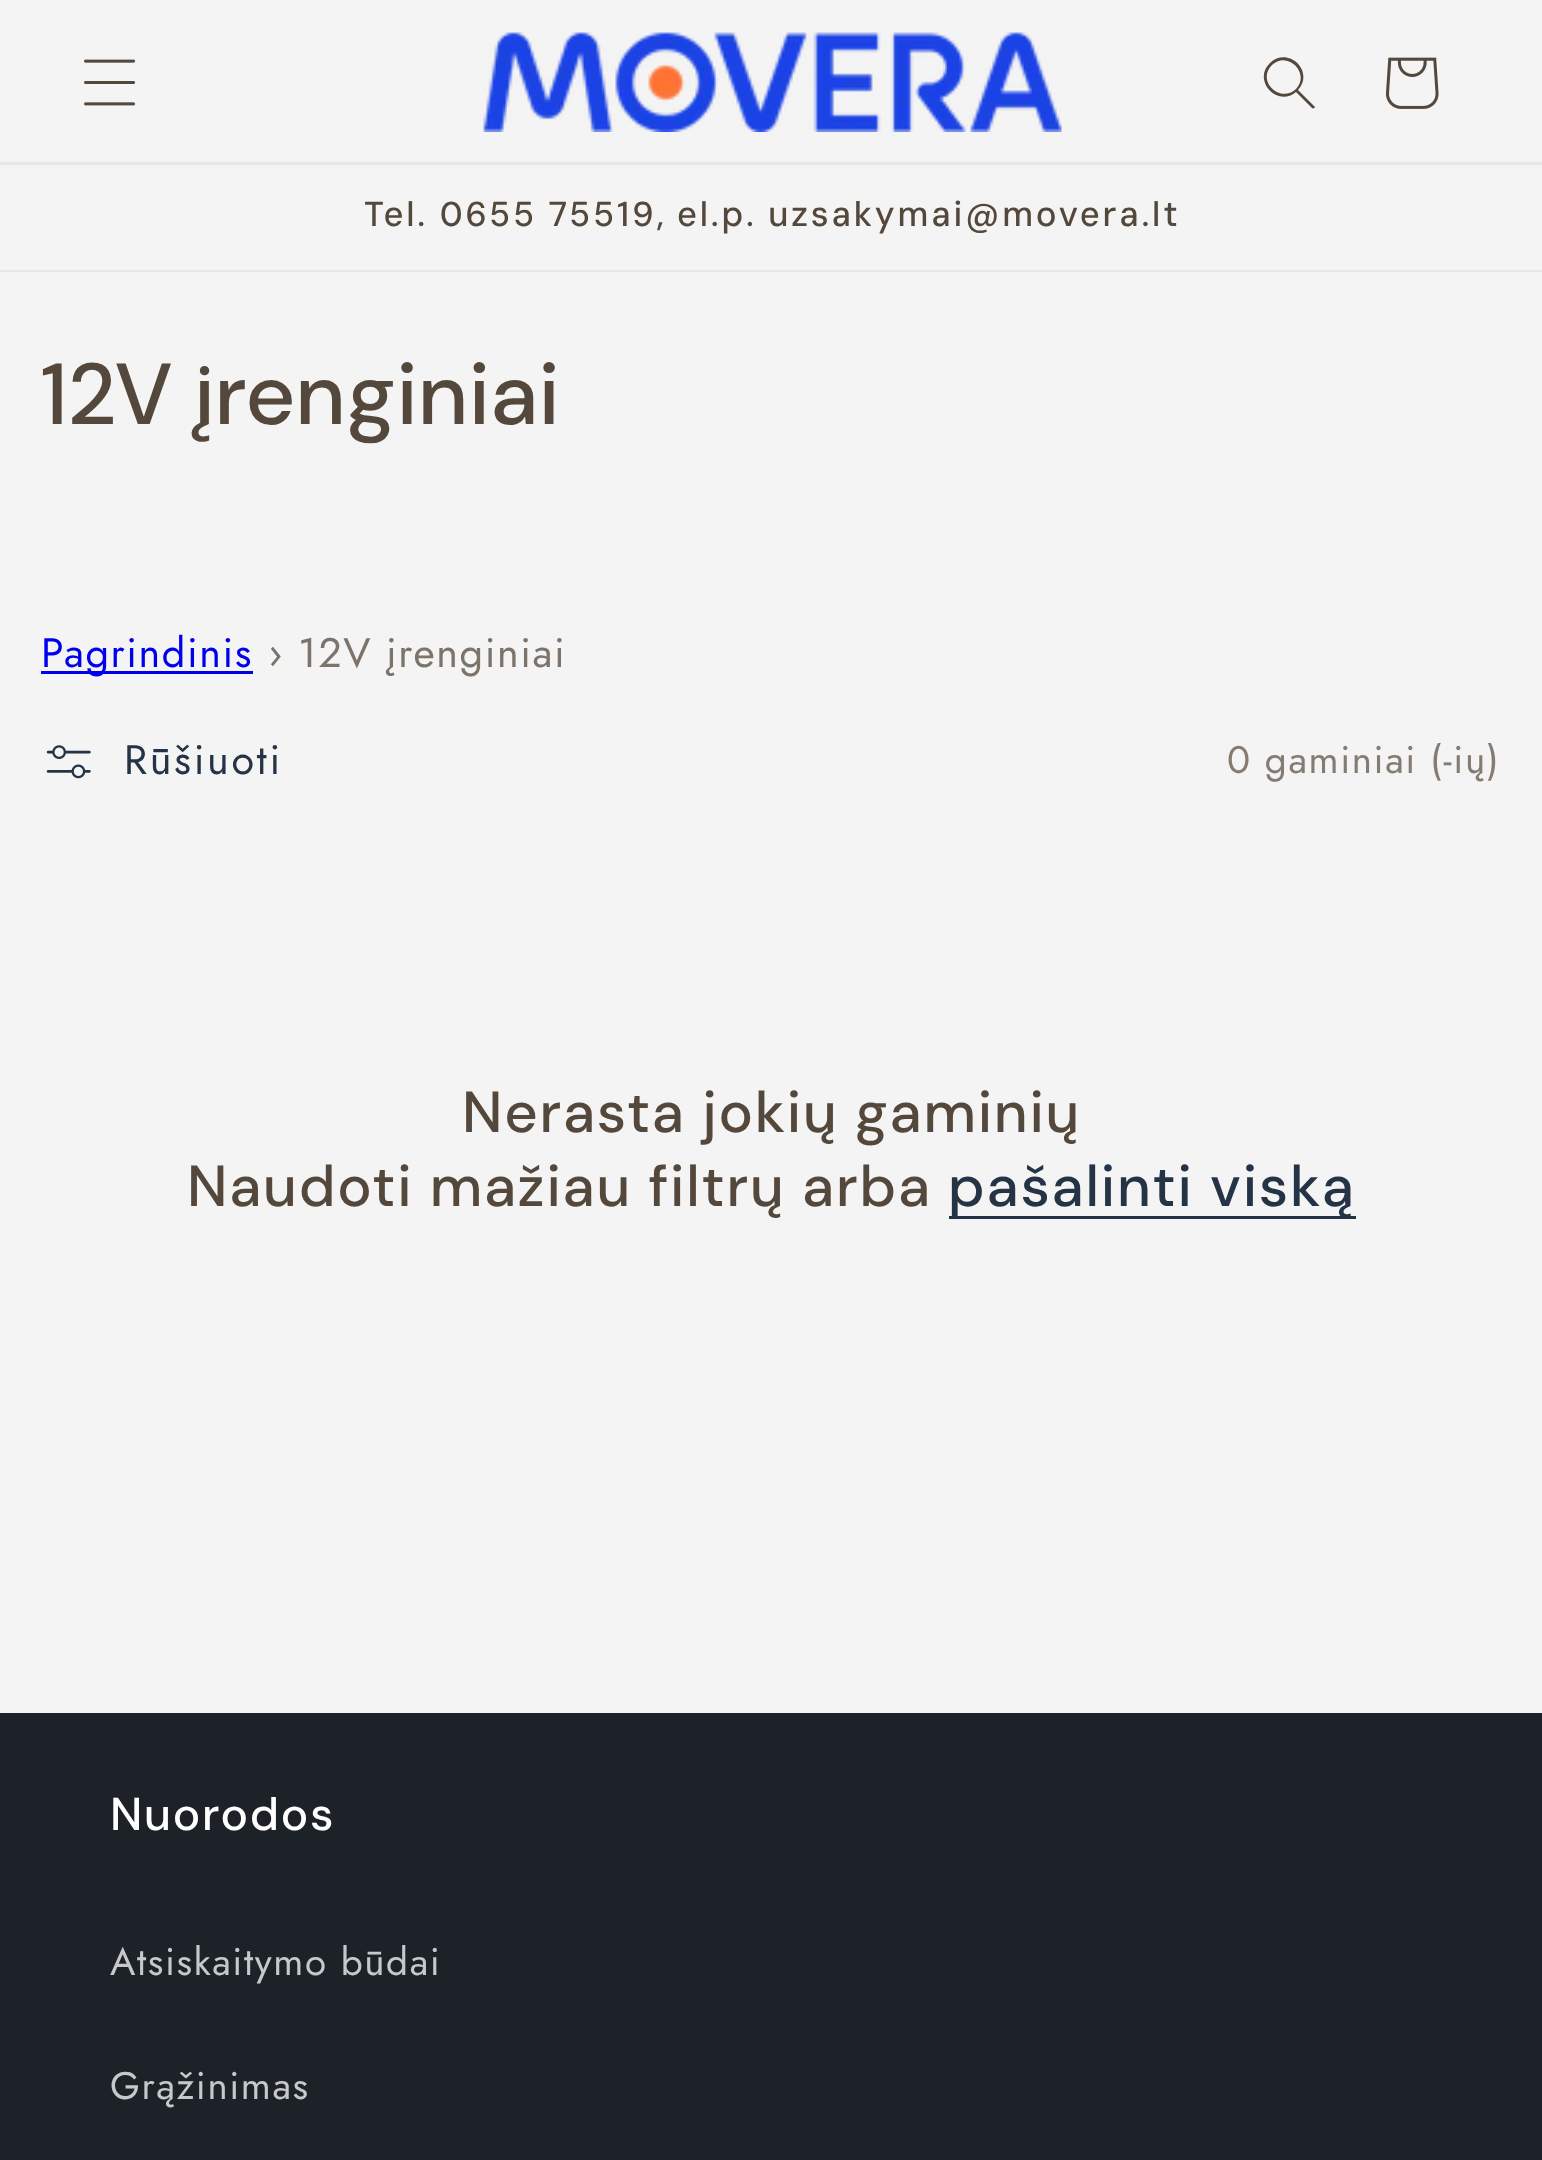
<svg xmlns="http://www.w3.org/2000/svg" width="1542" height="2160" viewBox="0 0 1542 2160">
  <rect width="100%" height="100%" fill="rgb(244,244,244)"/>
  <rect x="0" y="162" width="1542" height="3" fill="rgb(231,230,229)"/>
  <image x="84" y="59" width="52" height="47" href="pic1.png"/>
  <image x="483" y="32" width="579" height="100" href="pic2.png"/>
  <path d="M1296 89C1280 104 1256 81 1272 65C1287 50 1311 73 1296 89M1296 92C1277 108 1252 80 1270 63C1288 46 1315 71 1298 90L1315 107C1315 108 1313 109 1312 108Z" fill="rgb(84,72,60)" fill-rule="evenodd"/>
  <image x="1386" y="57" width="53" height="52" href="pic3.png"/>
  <rect x="0" y="270" width="1542" height="2" fill="rgb(231,230,229)"/>
  <g font-family="DM Sans" font-size="34.6" font-weight="500" letter-spacing="2.75" fill="rgb(84,72,60)">
    <text x="364" y="226">Tel. 0655 75519,</text>
    <text x="677" y="226">el.p.</text>
    <text x="768" y="226">uzsakymai@movera.lt</text>
  </g>
  <text x="41" y="424" font-family="'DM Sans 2'" font-size="86.5" font-weight="500" letter-spacing="1.75" fill="rgb(84,72,60)">12V įrenginiai</text>
  <rect x="41" y="671" width="212" height="3" fill="rgb(0,0,238)"/>
  <text x="41" y="667" font-family="Jost" font-size="41.25" letter-spacing="1.6" fill="rgb(0,0,238)">Pagrindinis</text>
  <text x="268" y="667" font-family="Jost" font-size="41.25" letter-spacing="1.6" fill="rgb(124,115,106)">› 12V įrenginiai</text>
  <image x="46" y="745" width="45" height="34" href="pic4.png"/>
  <text x="124" y="774" font-family="Jost" font-size="41.25" letter-spacing="2.75" fill="rgb(37,51,71)">Rūšiuoti</text>
  <text x="1227" y="773" font-family="Jost" font-size="38.5" letter-spacing="1.6" fill="rgb(132,124,115)">0 gaminiai (-ių)</text>
  <g font-family="'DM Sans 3'" font-size="57.75" font-weight="500" letter-spacing="1.75" fill="rgb(84,72,60)">
    <text x="462" y="1132">Nerasta jokių gaminių</text>
    <text x="187" y="1206">Naudoti mažiau filtrų arba</text>
  </g>
  <rect x="949" y="1216" width="407" height="3" fill="rgb(37,51,71)"/>
  <text x="948" y="1206" font-family="'DM Sans 3'" font-size="57.75" font-weight="500" letter-spacing="1.75" fill="rgb(37,51,71)">pašalinti viską</text>
  <rect x="0" y="1713" width="1542" height="447" fill="rgb(28,34,40)"/>
  <text x="110" y="1830" font-family="'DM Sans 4'" font-size="46" font-weight="500" letter-spacing="1.75" fill="rgb(255,255,255)">Nuorodos</text>
  <g font-family="Jost" font-size="38.5" letter-spacing="1.6" fill="rgb(198,200,201)">
    <text x="110" y="1975">Atsiskaitymo būdai</text>
    <text x="110" y="2099">Grąžinimas</text>
  </g>
</svg>
